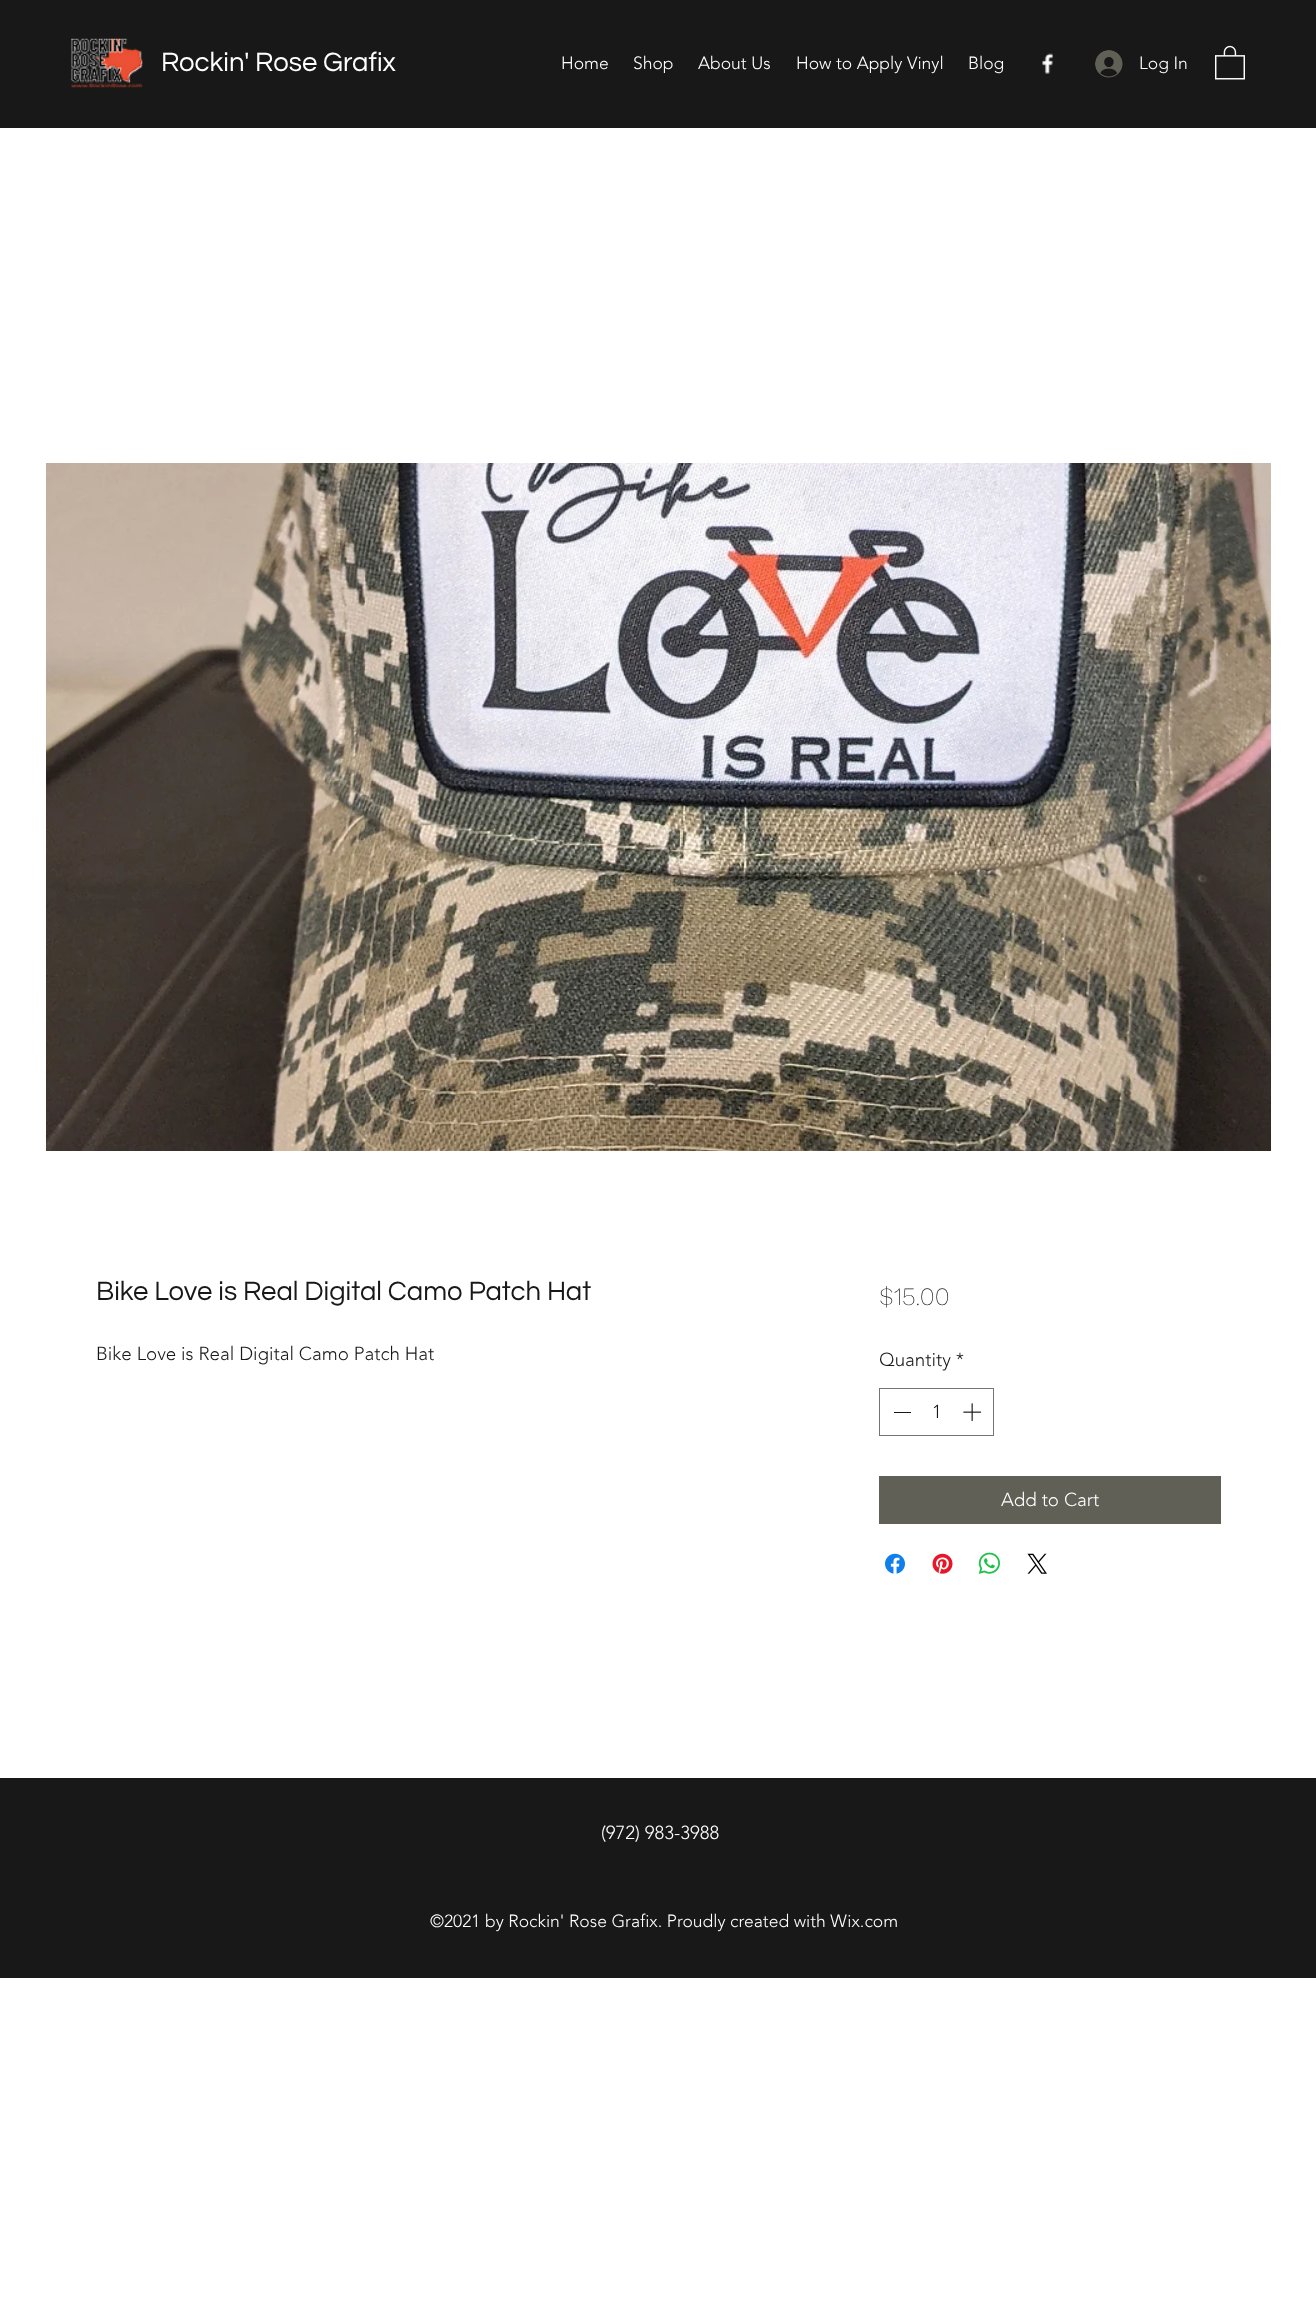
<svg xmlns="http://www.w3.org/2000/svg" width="1316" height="2305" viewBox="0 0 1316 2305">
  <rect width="100%" height="100%" fill="rgb(255,255,255)"/>
  <rect x="0" y="0" width="1316" height="128" fill="rgb(24,24,24)"/>
  <image x="71" y="38" width="72" height="50" href="pic1.png"/>
  <text x="161" y="71" font-family="Questrial" font-size="27.5" fill="rgb(255,255,255)">Rockin' Rose Grafix</text>
  <g font-family="'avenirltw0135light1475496'" font-size="17.5" font-weight="300" fill="rgb(255,255,255)">
    <text x="561" y="69">Home</text>
    <text x="633" y="69">Shop</text>
    <text x="698" y="69">About Us</text>
    <text x="796" y="69">How to Apply Vinyl</text>
    <text x="968" y="69">Blog</text>
  </g>
  <image x="1042" y="53" width="12" height="21" href="pic2.png"/>
  <image x="1095" y="50" width="28" height="28" href="pic3.png"/>
  <text x="1139" y="69" font-family="'avenirltw0135light1475496'" font-size="17.5" font-weight="300" fill="rgb(255,255,255)">Log In</text>
  <image x="1215" y="45" width="30" height="35" href="pic4.png"/>
  <image x="46" y="463" width="1225" height="688" href="pic5.png"/>
  <text x="96" y="1300" font-family="Questrial" font-size="27.5" fill="rgb(24,24,24)">Bike Love is Real Digital Camo Patch Hat</text>
  <text x="96" y="1360" font-family="'avenirltw0135light1475496'" font-size="18.75" font-weight="300" fill="rgb(24,24,24)">Bike Love is Real Digital Camo Patch Hat</text>
  <text x="879" y="1305" font-family="Work Sans" font-size="25" font-weight="200" fill="rgb(24,24,24)">$15.00</text>
  <text x="879" y="1366" font-family="'avenirltw0135light1475496'" font-size="18.75" font-weight="300" fill="rgb(24,24,24)">Quantity *</text>
  <rect x="879.5" y="1388.5" width="114" height="47" fill="none" stroke="rgb(116,116,116)"/>
  <rect x="894" y="1412" width="17" height="1" fill="rgb(24,24,24)"/>
  <text x="932" y="1418" font-family="'avenirltw0135light1475496'" font-size="18.75" font-weight="300" fill="rgb(24,24,24)">1</text>
  <image x="963" y="1403" width="18" height="18" href="pic6.png"/>
  <rect x="879" y="1476" width="342" height="48" fill="rgb(97,96,87)"/>
  <text x="1001" y="1506" font-family="'avenirltw0135light1475496'" font-size="18.75" font-weight="300" fill="rgb(255,255,255)">Add to Cart</text>
  <image x="885" y="1553" width="20" height="21" href="pic7.png"/>
  <image x="932" y="1553" width="21" height="21" href="pic8.png"/>
  <image x="978" y="1552" width="22" height="22" href="pic9.png"/>
  <image x="1027" y="1553" width="20" height="21" href="pic10.png"/>
  <rect x="0" y="1778" width="1316" height="200" fill="rgb(24,24,24)"/>
  <text x="601" y="1839" font-family="'avenirltw0135light1475496'" font-size="18.75" font-weight="300" fill="rgb(255,255,255)">(972) 983-3988</text>
  <text x="430" y="1927" font-family="'avenirltw0135light1475496'" font-size="17.5" font-weight="300" fill="rgb(255,255,255)">©2021 by Rockin' Rose Grafix. Proudly created with Wix.com</text>
</svg>
